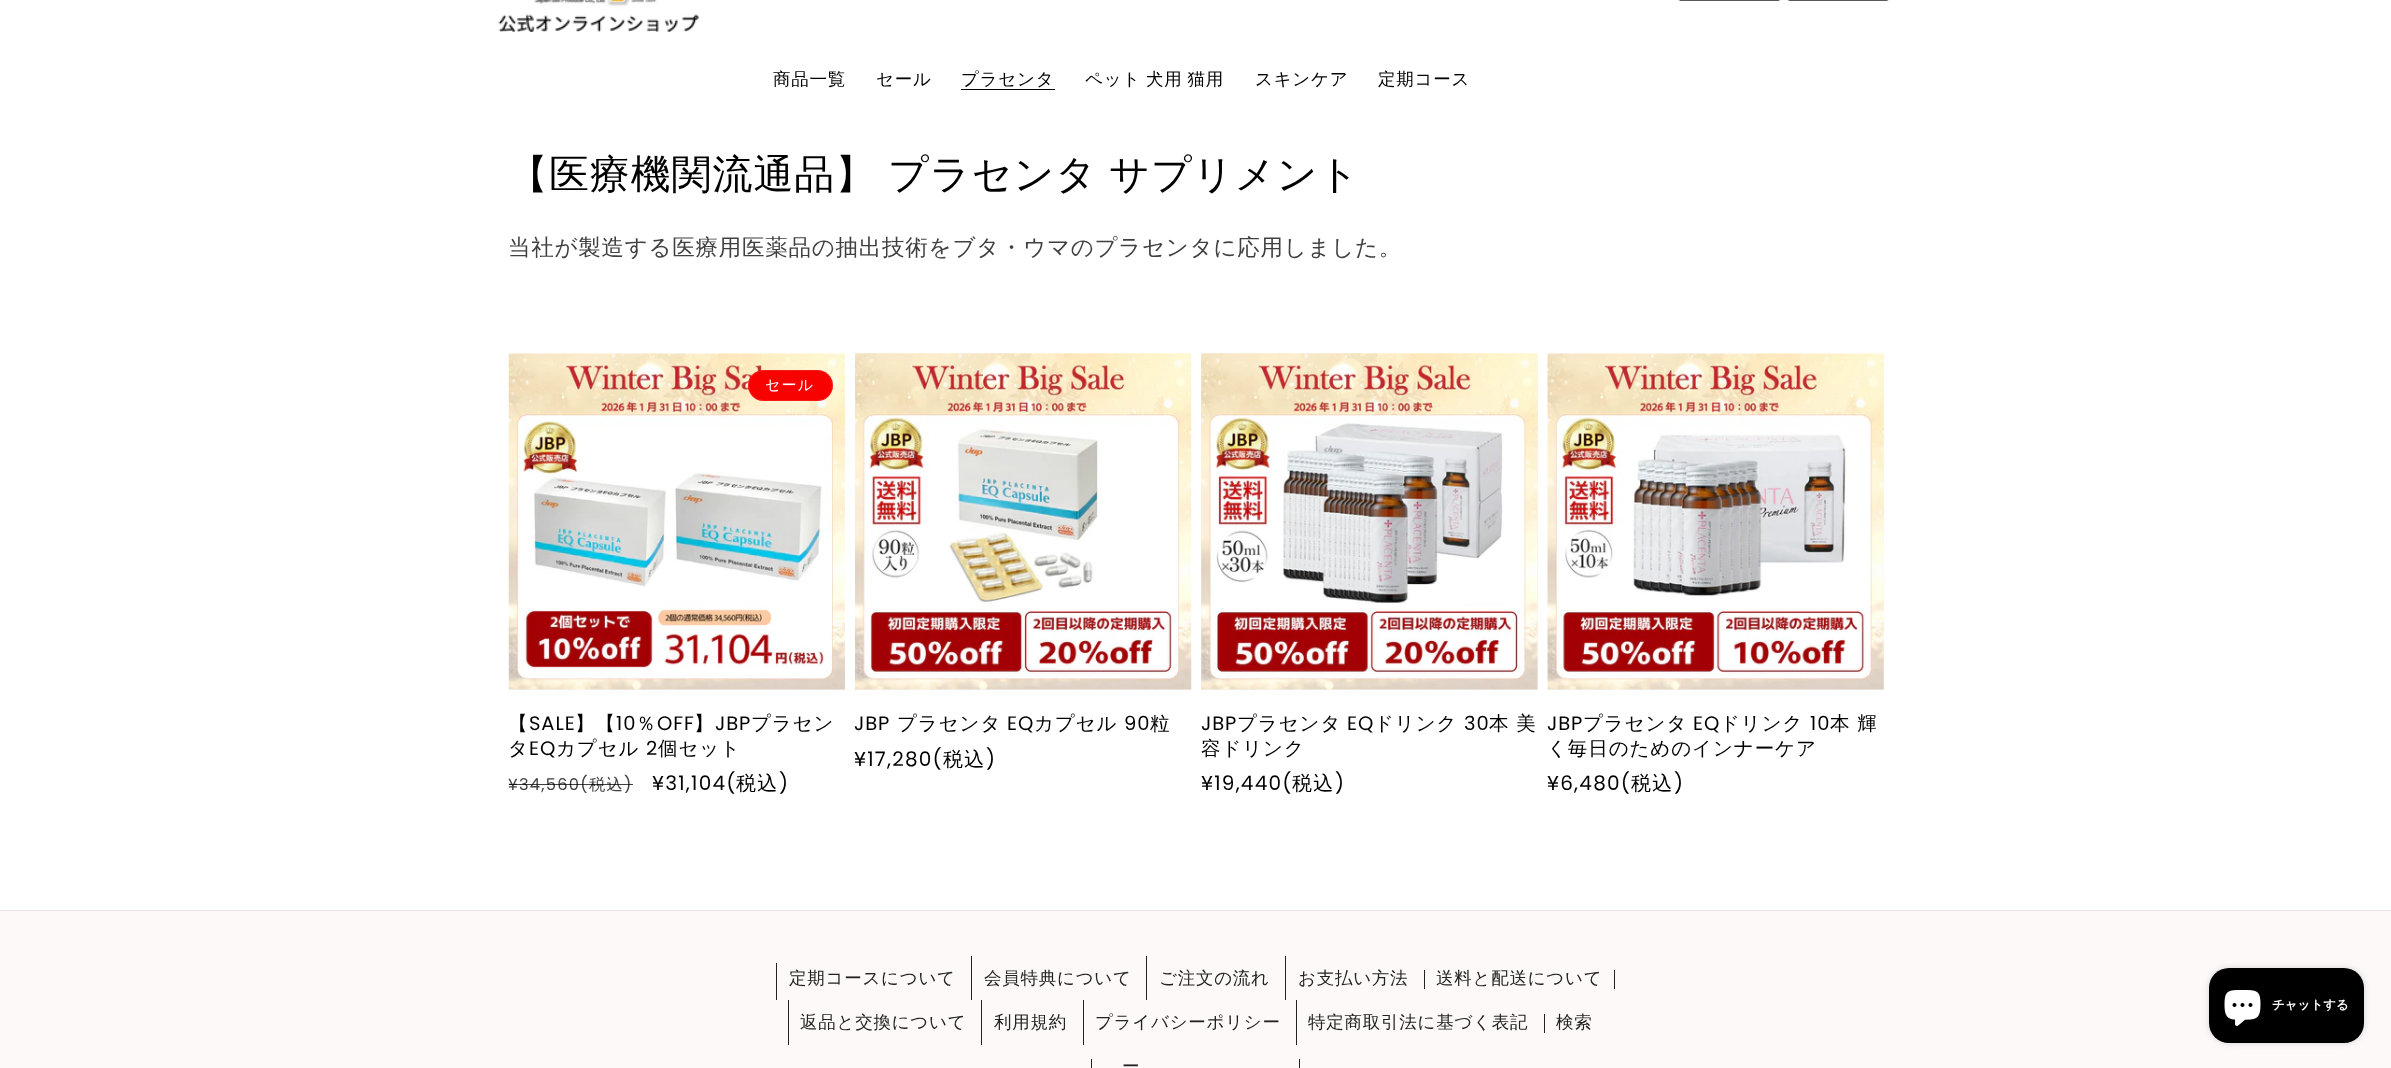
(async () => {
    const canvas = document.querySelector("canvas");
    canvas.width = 2391;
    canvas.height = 1068;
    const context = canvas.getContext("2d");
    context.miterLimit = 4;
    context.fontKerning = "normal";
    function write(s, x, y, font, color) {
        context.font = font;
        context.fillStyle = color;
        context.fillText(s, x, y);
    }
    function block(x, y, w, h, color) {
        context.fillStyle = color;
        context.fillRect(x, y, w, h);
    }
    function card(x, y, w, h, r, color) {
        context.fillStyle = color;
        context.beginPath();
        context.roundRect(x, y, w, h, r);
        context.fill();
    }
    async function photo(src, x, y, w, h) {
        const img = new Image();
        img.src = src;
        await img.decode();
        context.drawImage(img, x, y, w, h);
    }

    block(0, 0, 2391, 1068, "rgb(255, 255, 255)");
    await photo("media/1.png", 498, 0, 201, 32);
    await photo("media/2.png", 1678, 0, 102, 1);
    await photo("media/3.png", 1787, 0, 102, 1);
    context.letterSpacing = "0.75px";
    write("商品一覧", 773, 85, "500 17.5px WenQuanYi Zen Hei", "rgb(0, 0, 0)");
    write("セール", 876, 85, "500 17.5px WenQuanYi Zen Hei", "rgb(0, 0, 0)");
    write("プラセンタ", 961, 85, "500 17.5px WenQuanYi Zen Hei", "rgb(0, 0, 0)");
    block(961, 89, 94, 1, "rgb(0, 0, 0)");
    context.wordSpacing = "-1px";
    write("ペット 犬用 猫用", 1085, 85, "500 17.5px WenQuanYi Zen Hei", "rgb(0, 0, 0)");
    context.wordSpacing = "0px";
    write("スキンケア", 1255, 85, "500 17.5px WenQuanYi Zen Hei", "rgb(0, 0, 0)");
    write("定期コース", 1378, 85, "500 17.5px WenQuanYi Zen Hei", "rgb(0, 0, 0)");
    context.letterSpacing = "0.9px";
    context.wordSpacing = "-1px";
    write("【医療機関流通品】 プラセンタ サプリメント", 508, 188, "500 40px WenQuanYi Zen Hei", "rgb(0, 0, 0)");
    context.letterSpacing = "0.75px";
    context.wordSpacing = "0px";
    write("当社が製造する医療用医薬品の抽出技術をブタ・ウマのプラセンタに応用しました。", 508, 255, "500 22.5px WenQuanYi Zen Hei", "rgb(64, 64, 64)");
    block(509, 689, 336, 1, "rgb(243, 243, 243)");
    await photo("media/4.png", 508, 353, 337, 337);
    card(748, 370, 85, 31, 15.5, "rgb(248, 1, 1)");
    context.beginPath();
    context.roundRect(748.5, 370.5, 84, 30, 15);
    context.strokeStyle = "rgba(255, 255, 255, 0.1)";
    context.stroke();
    context.letterSpacing = "1.25px";
    write("セール", 765, 390, "500 15px WenQuanYi Zen Hei", "rgb(255, 255, 255)");
    context.letterSpacing = "0.9px";
    write("【", 508, 730, "500 19.5px WenQuanYi Zen Hei", "rgb(0, 0, 0)");
    write("SALE", 529, 730, "19.5px Poppins", "rgb(0, 0, 0)");
    write("】【", 575, 730, "500 19.5px WenQuanYi Zen Hei", "rgb(0, 0, 0)");
    write("10", 616, 730, "19.5px Poppins", "rgb(0, 0, 0)");
    write("％", 636, 730, "500 19.5px WenQuanYi Zen Hei", "rgb(0, 0, 0)");
    write("OFF", 657, 730, "19.5px Poppins", "rgb(0, 0, 0)");
    write("】", 694, 730, "500 19.5px WenQuanYi Zen Hei", "rgb(0, 0, 0)");
    write("JBP", 715, 730, "19.5px Poppins", "rgb(0, 0, 0)");
    write("プラセン", 751, 730, "500 19.5px WenQuanYi Zen Hei", "rgb(0, 0, 0)");
    write("タ", 508, 755, "500 19.5px WenQuanYi Zen Hei", "rgb(0, 0, 0)");
    write("EQ", 529, 755, "19.5px Poppins", "rgb(0, 0, 0)");
    write("カプセル", 556, 755, "500 19.5px WenQuanYi Zen Hei", "rgb(0, 0, 0)");
    write("2", 646, 755, "19.5px Poppins", "rgb(0, 0, 0)");
    write("個セット", 658, 755, "500 19.5px WenQuanYi Zen Hei", "rgb(0, 0, 0)");
    context.letterSpacing = "1.25px";
    write("¥34,560(", 508, 790, "16.25px Poppins", "rgb(64, 64, 64)");
    write("税込", 589, 790, "500 16.25px WenQuanYi Zen Hei", "rgb(64, 64, 64)");
    write(")", 624, 790, "16.25px Poppins", "rgb(64, 64, 64)");
    block(509, 784, 124, 1, "rgba(0, 0, 0, 0.75)");
    write("¥31,104(", 652, 790, "20px Poppins", "rgb(0, 0, 0)");
    write("税込", 736, 790, "500 20px WenQuanYi Zen Hei", "rgb(0, 0, 0)");
    write(")", 779, 790, "20px Poppins", "rgb(0, 0, 0)");
    block(855, 689, 336, 1, "rgb(243, 243, 243)");
    await photo("media/5.png", 855, 353, 337, 337);
    context.letterSpacing = "0.9px";
    write("JBP", 854, 730, "19.5px Poppins", "rgb(0, 0, 0)");
    write("プラセンタ", 897, 730, "500 19.5px WenQuanYi Zen Hei", "rgb(0, 0, 0)");
    write("EQ", 1007, 730, "19.5px Poppins", "rgb(0, 0, 0)");
    write("カプセル", 1034, 730, "500 19.5px WenQuanYi Zen Hei", "rgb(0, 0, 0)");
    write("90", 1124, 730, "19.5px Poppins", "rgb(0, 0, 0)");
    write("粒", 1150, 730, "500 19.5px WenQuanYi Zen Hei", "rgb(0, 0, 0)");
    context.letterSpacing = "1.25px";
    write("¥17,280(", 854, 766, "20px Poppins", "rgb(0, 0, 0)");
    write("税込", 943, 766, "500 20px WenQuanYi Zen Hei", "rgb(0, 0, 0)");
    write(")", 986, 766, "20px Poppins", "rgb(0, 0, 0)");
    block(1201, 354, 337, 336, "rgb(243, 243, 243)");
    await photo("media/6.png", 1201, 353, 337, 337);
    context.letterSpacing = "0.9px";
    write("JBP", 1201, 730, "19.5px Poppins", "rgb(0, 0, 0)");
    write("プラセンタ", 1237, 730, "500 19.5px WenQuanYi Zen Hei", "rgb(0, 0, 0)");
    write("EQ", 1347, 730, "19.5px Poppins", "rgb(0, 0, 0)");
    write("ドリンク", 1374, 730, "500 19.5px WenQuanYi Zen Hei", "rgb(0, 0, 0)");
    write("30", 1464, 730, "19.5px Poppins", "rgb(0, 0, 0)");
    write("本 美", 1489, 730, "500 19.5px WenQuanYi Zen Hei", "rgb(0, 0, 0)");
    write("容ドリンク", 1201, 755, "500 19.5px WenQuanYi Zen Hei", "rgb(0, 0, 0)");
    context.letterSpacing = "1.25px";
    write("¥19,440(", 1201, 790, "20px Poppins", "rgb(0, 0, 0)");
    write("税込", 1292, 790, "500 20px WenQuanYi Zen Hei", "rgb(0, 0, 0)");
    write(")", 1335, 790, "20px Poppins", "rgb(0, 0, 0)");
    block(1548, 354, 336, 336, "rgb(243, 243, 243)");
    await photo("media/7.png", 1547, 353, 337, 337);
    context.letterSpacing = "0.9px";
    write("JBP", 1547, 730, "19.5px Poppins", "rgb(0, 0, 0)");
    write("プラセンタ", 1583, 730, "500 19.5px WenQuanYi Zen Hei", "rgb(0, 0, 0)");
    write("EQ", 1693, 730, "19.5px Poppins", "rgb(0, 0, 0)");
    write("ドリンク", 1720, 730, "500 19.5px WenQuanYi Zen Hei", "rgb(0, 0, 0)");
    write("10", 1810, 730, "19.5px Poppins", "rgb(0, 0, 0)");
    write("本 輝", 1830, 730, "500 19.5px WenQuanYi Zen Hei", "rgb(0, 0, 0)");
    write("く毎日のためのインナーケア", 1547, 755, "500 19.5px WenQuanYi Zen Hei", "rgb(0, 0, 0)");
    context.letterSpacing = "1.25px";
    write("¥6,480(", 1547, 790, "20px Poppins", "rgb(0, 0, 0)");
    write("税込", 1631, 790, "500 20px WenQuanYi Zen Hei", "rgb(0, 0, 0)");
    write(")", 1674, 790, "20px Poppins", "rgb(0, 0, 0)");
    block(0, 911, 2391, 157, "rgb(254, 249, 249)");
    block(0, 910, 2391, 1, "rgb(234, 229, 229)");
    block(776, 963, 1, 37, "rgb(34, 34, 34)");
    context.letterSpacing = "0.75px";
    write("定期コースについて", 789, 984, "500 17.5px WenQuanYi Zen Hei", "rgb(34, 34, 34)");
    block(971, 956, 1, 44, "rgb(34, 34, 34)");
    write("会員特典について", 984, 984, "500 17.5px WenQuanYi Zen Hei", "rgb(34, 34, 34)");
    block(1146, 956, 1, 44, "rgb(34, 34, 34)");
    write("ご注文の流れ", 1159, 984, "500 17.5px WenQuanYi Zen Hei", "rgb(34, 34, 34)");
    block(1285, 956, 1, 44, "rgb(34, 34, 34)");
    write("お支払い方法", 1298, 984, "500 17.5px WenQuanYi Zen Hei", "rgb(34, 34, 34)");
    block(1614, 970, 1, 19, "rgb(34, 34, 34)");
    block(1424, 970, 1, 19, "rgb(34, 34, 34)");
    write("送料と配送について", 1436, 984, "500 17.5px WenQuanYi Zen Hei", "rgb(34, 34, 34)");
    block(788, 1000, 1, 45, "rgb(34, 34, 34)");
    write("返品と交換について", 800, 1028, "500 17.5px WenQuanYi Zen Hei", "rgb(34, 34, 34)");
    block(981, 1000, 1, 45, "rgb(34, 34, 34)");
    write("利用規約", 994, 1028, "500 17.5px WenQuanYi Zen Hei", "rgb(34, 34, 34)");
    block(1083, 1000, 1, 45, "rgb(34, 34, 34)");
    write("プライバシーポリシー", 1095, 1028, "500 17.5px WenQuanYi Zen Hei", "rgb(34, 34, 34)");
    block(1296, 1000, 1, 45, "rgb(34, 34, 34)");
    write("特定商取引法に基づく表記", 1308, 1028, "500 17.5px WenQuanYi Zen Hei", "rgb(34, 34, 34)");
    block(1544, 1014, 1, 19, "rgb(34, 34, 34)");
    write("検索", 1556, 1028, "500 17.5px WenQuanYi Zen Hei", "rgb(34, 34, 34)");
    block(1299, 1059, 1, 9, "rgb(34, 34, 34)");
    block(1091, 1059, 1, 9, "rgb(34, 34, 34)");
    write("ー", 1122, 1072, "500 17.5px WenQuanYi Zen Hei", "rgb(34, 34, 34)");
    context.fillStyle = "rgba(0, 0, 0, 0.15)";
    context.filter = "blur(3px)";
    context.beginPath();
    context.roundRect(2209, 968, 155, 75, 20);
    context.fill();
    context.filter = "none";
    card(2209, 968, 155, 75, 20, "rgb(0, 0, 0)");
    await photo("media/8.png", 2224, 990, 37, 36);
    context.letterSpacing = "0px";
    write("チャットする", 2272, 1009, "bold 12.5px WenQuanYi Zen Hei", "rgb(255, 255, 255)");
})();
